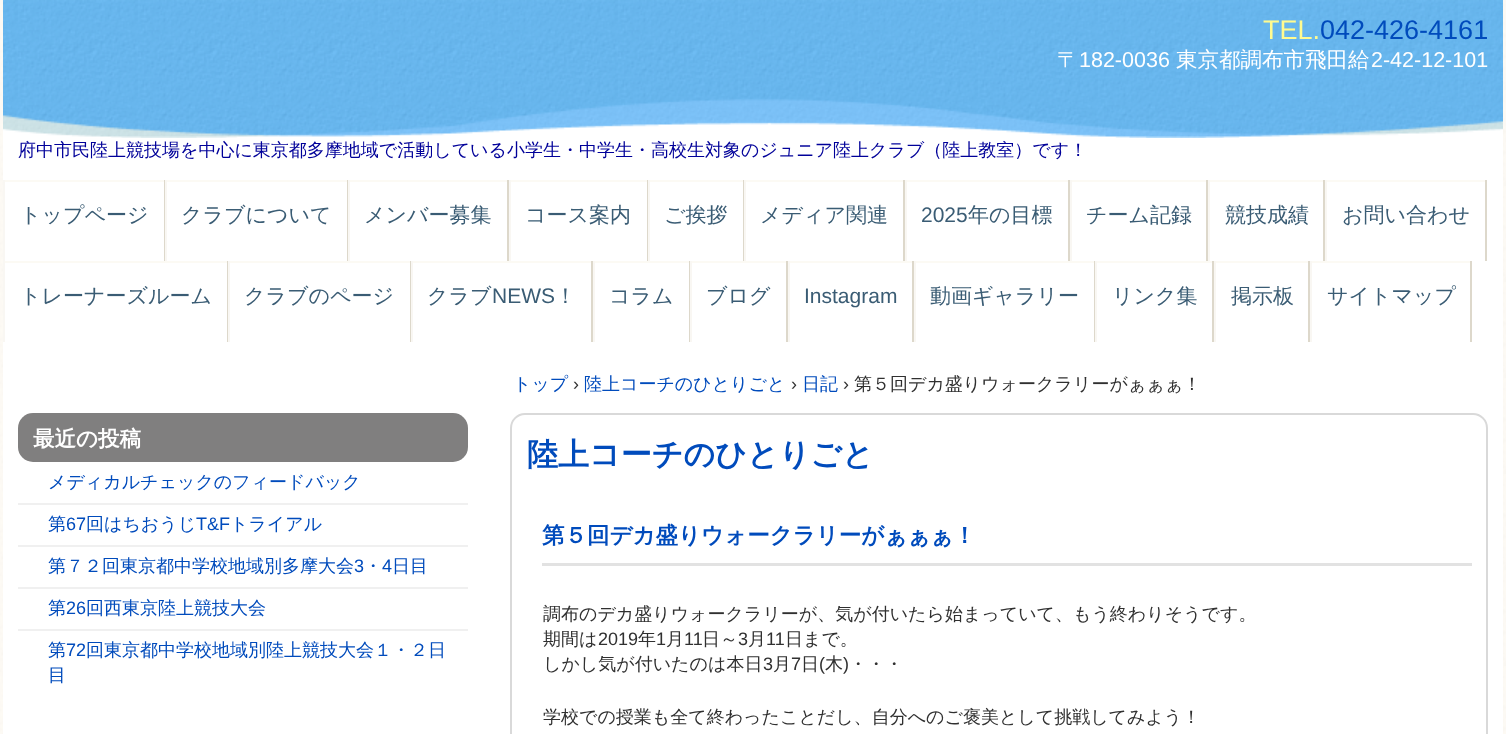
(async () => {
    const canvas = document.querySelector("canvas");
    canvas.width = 1506;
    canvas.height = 734;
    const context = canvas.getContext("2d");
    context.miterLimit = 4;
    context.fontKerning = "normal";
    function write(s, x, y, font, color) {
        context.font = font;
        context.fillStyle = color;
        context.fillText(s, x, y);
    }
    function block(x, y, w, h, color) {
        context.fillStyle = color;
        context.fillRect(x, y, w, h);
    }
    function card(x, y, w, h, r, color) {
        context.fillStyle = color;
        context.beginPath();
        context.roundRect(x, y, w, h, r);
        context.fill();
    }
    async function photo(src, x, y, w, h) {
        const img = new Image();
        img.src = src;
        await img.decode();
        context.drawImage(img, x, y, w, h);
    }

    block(0, 0, 1506, 734, "rgb(255, 255, 255)");
    await photo("media/1.png", 0, 0, 1506, 734);
    block(3, 138, 1500, 596, "rgb(255, 255, 255)");
    await photo("media/2.png", 3, 0, 1500, 138);
    write("TEL.", 1263, 39, "27px Liberation Sans", "rgb(255, 251, 144)");
    write("042-426-4161", 1320, 39, "27px Liberation Sans", "rgb(0, 75, 188)");
    write("〒", 1057, 67, "500 21.5px WenQuanYi Zen Hei", "rgb(255, 255, 255)");
    write("182-0036", 1079, 67, "21.5px Liberation Sans", "rgb(255, 255, 255)");
    write("東京都調布市飛田給", 1176, 67, "500 21.5px WenQuanYi Zen Hei", "rgb(255, 255, 255)");
    write("2-42-12-101", 1371, 67, "21.5px Liberation Sans", "rgb(255, 255, 255)");
    write("府中市民陸上競技場を中心に東京都多摩地域で活動している小学生・中学生・高校生対象のジュニア陸上クラブ（陸上教室）です！", 18, 156, "500 18px WenQuanYi Zen Hei", "rgb(0, 0, 153)");
    block(3, 180, 1484, 2, "rgb(252, 250, 244)");
    block(164, 180, 1, 81, "rgb(221, 216, 203)");
    block(3, 180, 2, 81, "rgb(249, 247, 243)");
    write("トップページ", 20, 222, "500 21px WenQuanYi Zen Hei", "rgb(58, 92, 116)");
    block(347, 180, 1, 81, "rgb(221, 216, 203)");
    block(165, 180, 2, 81, "rgb(249, 247, 243)");
    write("クラブについて", 181, 222, "500 21px WenQuanYi Zen Hei", "rgb(58, 92, 116)");
    block(507, 180, 2, 81, "rgb(221, 216, 203)");
    block(348, 180, 2, 81, "rgb(249, 247, 243)");
    write("メンバー募集", 364, 222, "500 21px WenQuanYi Zen Hei", "rgb(58, 92, 116)");
    block(647, 180, 1, 81, "rgb(221, 216, 203)");
    block(509, 180, 2, 81, "rgb(249, 247, 243)");
    write("コース案内", 525, 222, "500 21px WenQuanYi Zen Hei", "rgb(58, 92, 116)");
    block(743, 180, 1, 81, "rgb(221, 216, 203)");
    block(648, 180, 2, 81, "rgb(249, 247, 243)");
    write("ご挨拶", 664, 222, "500 21px WenQuanYi Zen Hei", "rgb(58, 92, 116)");
    block(903, 180, 2, 81, "rgb(221, 216, 203)");
    block(744, 180, 2, 81, "rgb(249, 247, 243)");
    write("メディア関連", 760, 222, "500 21px WenQuanYi Zen Hei", "rgb(58, 92, 116)");
    block(1068, 180, 2, 81, "rgb(221, 216, 203)");
    block(905, 180, 2, 81, "rgb(249, 247, 243)");
    write("2025", 921, 222, "21px Liberation Sans", "rgb(58, 92, 116)");
    write("年の目標", 968, 222, "500 21px WenQuanYi Zen Hei", "rgb(58, 92, 116)");
    block(1206, 180, 2, 81, "rgb(221, 216, 203)");
    block(1070, 180, 2, 81, "rgb(249, 247, 243)");
    write("チーム記録", 1086, 222, "500 21px WenQuanYi Zen Hei", "rgb(58, 92, 116)");
    block(1323, 180, 2, 81, "rgb(221, 216, 203)");
    block(1208, 180, 2, 81, "rgb(249, 247, 243)");
    write("競技成績", 1225, 222, "500 21px WenQuanYi Zen Hei", "rgb(58, 92, 116)");
    block(1485, 180, 2, 81, "rgb(221, 216, 203)");
    block(1325, 180, 2, 81, "rgb(249, 247, 243)");
    write("お問い合わせ", 1342, 222, "500 21px WenQuanYi Zen Hei", "rgb(58, 92, 116)");
    block(3, 261, 1469, 2, "rgb(252, 250, 244)");
    block(227, 261, 1, 81, "rgb(221, 216, 203)");
    block(3, 261, 2, 81, "rgb(249, 247, 243)");
    write("トレーナーズルーム", 20, 303, "500 21px WenQuanYi Zen Hei", "rgb(58, 92, 116)");
    block(410, 261, 1, 81, "rgb(221, 216, 203)");
    block(228, 261, 2, 81, "rgb(249, 247, 243)");
    write("クラブのページ", 244, 303, "500 21px WenQuanYi Zen Hei", "rgb(58, 92, 116)");
    block(591, 261, 2, 81, "rgb(221, 216, 203)");
    block(411, 261, 2, 81, "rgb(249, 247, 243)");
    write("クラブ", 427, 303, "500 21px WenQuanYi Zen Hei", "rgb(58, 92, 116)");
    write("NEWS", 492, 303, "21px Liberation Sans", "rgb(58, 92, 116)");
    write("！", 555, 303, "500 21px WenQuanYi Zen Hei", "rgb(58, 92, 116)");
    block(689, 261, 1, 81, "rgb(221, 216, 203)");
    block(593, 261, 2, 81, "rgb(249, 247, 243)");
    write("コラム", 609, 303, "500 21px WenQuanYi Zen Hei", "rgb(58, 92, 116)");
    block(786, 261, 2, 81, "rgb(221, 216, 203)");
    block(690, 261, 2, 81, "rgb(249, 247, 243)");
    write("ブログ", 706, 303, "500 21px WenQuanYi Zen Hei", "rgb(58, 92, 116)");
    block(912, 261, 2, 81, "rgb(221, 216, 203)");
    block(788, 261, 2, 81, "rgb(249, 247, 243)");
    write("Instagram", 804, 303, "21px Liberation Sans", "rgb(58, 92, 116)");
    block(1094, 261, 1, 81, "rgb(221, 216, 203)");
    block(914, 261, 2, 81, "rgb(249, 247, 243)");
    write("動画ギャラリー", 930, 303, "500 21px WenQuanYi Zen Hei", "rgb(58, 92, 116)");
    block(1212, 261, 2, 81, "rgb(221, 216, 203)");
    block(1095, 261, 2, 81, "rgb(249, 247, 243)");
    write("リンク集", 1112, 303, "500 21px WenQuanYi Zen Hei", "rgb(58, 92, 116)");
    block(1308, 261, 2, 81, "rgb(221, 216, 203)");
    block(1214, 261, 2, 81, "rgb(249, 247, 243)");
    write("掲示板", 1231, 303, "500 21px WenQuanYi Zen Hei", "rgb(58, 92, 116)");
    block(1470, 261, 2, 81, "rgb(221, 216, 203)");
    block(1310, 261, 2, 81, "rgb(249, 247, 243)");
    write("サイトマップ", 1327, 303, "500 21px WenQuanYi Zen Hei", "rgb(58, 92, 116)");
    write("トップ", 513, 390, "500 18px WenQuanYi Zen Hei", "rgb(0, 75, 188)");
    write("›", 573, 390, "18px Liberation Sans", "rgb(48, 48, 48)");
    write("陸上コーチのひとりごと", 584, 390, "500 18px WenQuanYi Zen Hei", "rgb(0, 75, 188)");
    write("›", 791, 390, "18px Liberation Sans", "rgb(48, 48, 48)");
    write("日記", 802, 390, "500 18px WenQuanYi Zen Hei", "rgb(0, 75, 188)");
    write("›", 843, 390, "18px Liberation Sans", "rgb(48, 48, 48)");
    write("第５回デカ盛りウォークラリーがぁぁぁ！", 854, 390, "500 18px WenQuanYi Zen Hei", "rgb(48, 48, 48)");
    card(18, 413, 450, 49, 15, "rgb(128, 127, 127)");
    write("最近の投稿", 33, 446, "bold 21.5px WenQuanYi Zen Hei", "rgb(255, 255, 255)");
    block(18, 503, 450, 2, "rgb(240, 240, 240)");
    write("メディカルチェックのフィードバック", 48, 488, "500 18px WenQuanYi Zen Hei", "rgb(0, 75, 188)");
    block(18, 545, 450, 2, "rgb(240, 240, 240)");
    write("第", 48, 530, "500 18px WenQuanYi Zen Hei", "rgb(0, 75, 188)");
    write("67", 66, 530, "18px Liberation Sans", "rgb(0, 75, 188)");
    write("回はちおうじ", 86, 530, "500 18px WenQuanYi Zen Hei", "rgb(0, 75, 188)");
    write("T&F", 196, 530, "18px Liberation Sans", "rgb(0, 75, 188)");
    write("トライアル", 230, 530, "500 18px WenQuanYi Zen Hei", "rgb(0, 75, 188)");
    block(18, 587, 450, 2, "rgb(240, 240, 240)");
    write("第７２回東京都中学校地域別多摩大会", 48, 572, "500 18px WenQuanYi Zen Hei", "rgb(0, 75, 188)");
    write("3", 354, 572, "18px Liberation Sans", "rgb(0, 75, 188)");
    write("・", 364, 572, "500 18px WenQuanYi Zen Hei", "rgb(0, 75, 188)");
    write("4", 382, 572, "18px Liberation Sans", "rgb(0, 75, 188)");
    write("日目", 392, 572, "500 18px WenQuanYi Zen Hei", "rgb(0, 75, 188)");
    block(18, 629, 450, 2, "rgb(240, 240, 240)");
    write("第", 48, 614, "500 18px WenQuanYi Zen Hei", "rgb(0, 75, 188)");
    write("26", 66, 614, "18px Liberation Sans", "rgb(0, 75, 188)");
    write("回西東京陸上競技大会", 86, 614, "500 18px WenQuanYi Zen Hei", "rgb(0, 75, 188)");
    write("第", 48, 656, "500 18px WenQuanYi Zen Hei", "rgb(0, 75, 188)");
    write("72", 66, 656, "18px Liberation Sans", "rgb(0, 75, 188)");
    write("回東京都中学校地域別陸上競技大会１・２日", 86, 656, "500 18px WenQuanYi Zen Hei", "rgb(0, 75, 188)");
    write("目", 48, 681, "500 18px WenQuanYi Zen Hei", "rgb(0, 75, 188)");
    context.beginPath();
    context.roundRect(511, 414, 976, 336, 14);
    context.strokeStyle = "rgb(217, 217, 217)";
    context.lineWidth = 2;
    context.stroke();
    write("陸上コーチのひとりごと", 527, 465, "bold 31px WenQuanYi Zen Hei", "rgb(0, 75, 188)");
    block(542, 563, 930, 3, "rgb(226, 226, 226)");
    write("第５回デカ盛りウォークラリーがぁぁぁ！", 542, 543, "bold 22.5px WenQuanYi Zen Hei", "rgb(0, 75, 188)");
    write("調布のデカ盛りウォークラリーが、気が付いたら始まっていて、もう終わりそうです。", 543, 620, "500 18px WenQuanYi Zen Hei", "rgb(48, 48, 48)");
    write("期間は", 543, 645, "500 18px WenQuanYi Zen Hei", "rgb(48, 48, 48)");
    write("2019", 598, 645, "18px Liberation Sans", "rgb(48, 48, 48)");
    write("年", 638, 645, "500 18px WenQuanYi Zen Hei", "rgb(48, 48, 48)");
    write("1", 656, 645, "18px Liberation Sans", "rgb(48, 48, 48)");
    write("月", 666, 645, "500 18px WenQuanYi Zen Hei", "rgb(48, 48, 48)");
    write("11", 684, 645, "18px Liberation Sans", "rgb(48, 48, 48)");
    write("日～", 702, 645, "500 18px WenQuanYi Zen Hei", "rgb(48, 48, 48)");
    write("3", 738, 645, "18px Liberation Sans", "rgb(48, 48, 48)");
    write("月", 748, 645, "500 18px WenQuanYi Zen Hei", "rgb(48, 48, 48)");
    write("11", 766, 645, "18px Liberation Sans", "rgb(48, 48, 48)");
    write("日まで。", 785, 645, "500 18px WenQuanYi Zen Hei", "rgb(48, 48, 48)");
    write("しかし気が付いたのは本日", 543, 670, "500 18px WenQuanYi Zen Hei", "rgb(48, 48, 48)");
    write("3", 763, 670, "18px Liberation Sans", "rgb(48, 48, 48)");
    write("月", 773, 670, "500 18px WenQuanYi Zen Hei", "rgb(48, 48, 48)");
    write("7", 791, 670, "18px Liberation Sans", "rgb(48, 48, 48)");
    write("日", 801, 670, "500 18px WenQuanYi Zen Hei", "rgb(48, 48, 48)");
    write("(", 819, 670, "18px Liberation Sans", "rgb(48, 48, 48)");
    write("木", 825, 670, "500 18px WenQuanYi Zen Hei", "rgb(48, 48, 48)");
    write(")", 843, 670, "18px Liberation Sans", "rgb(48, 48, 48)");
    write("・・・", 849, 670, "500 18px WenQuanYi Zen Hei", "rgb(48, 48, 48)");
    write("学校での授業も全て終わったことだし、自分へのご褒美として挑戦してみよう！", 543, 723, "500 18px WenQuanYi Zen Hei", "rgb(48, 48, 48)");
})();
